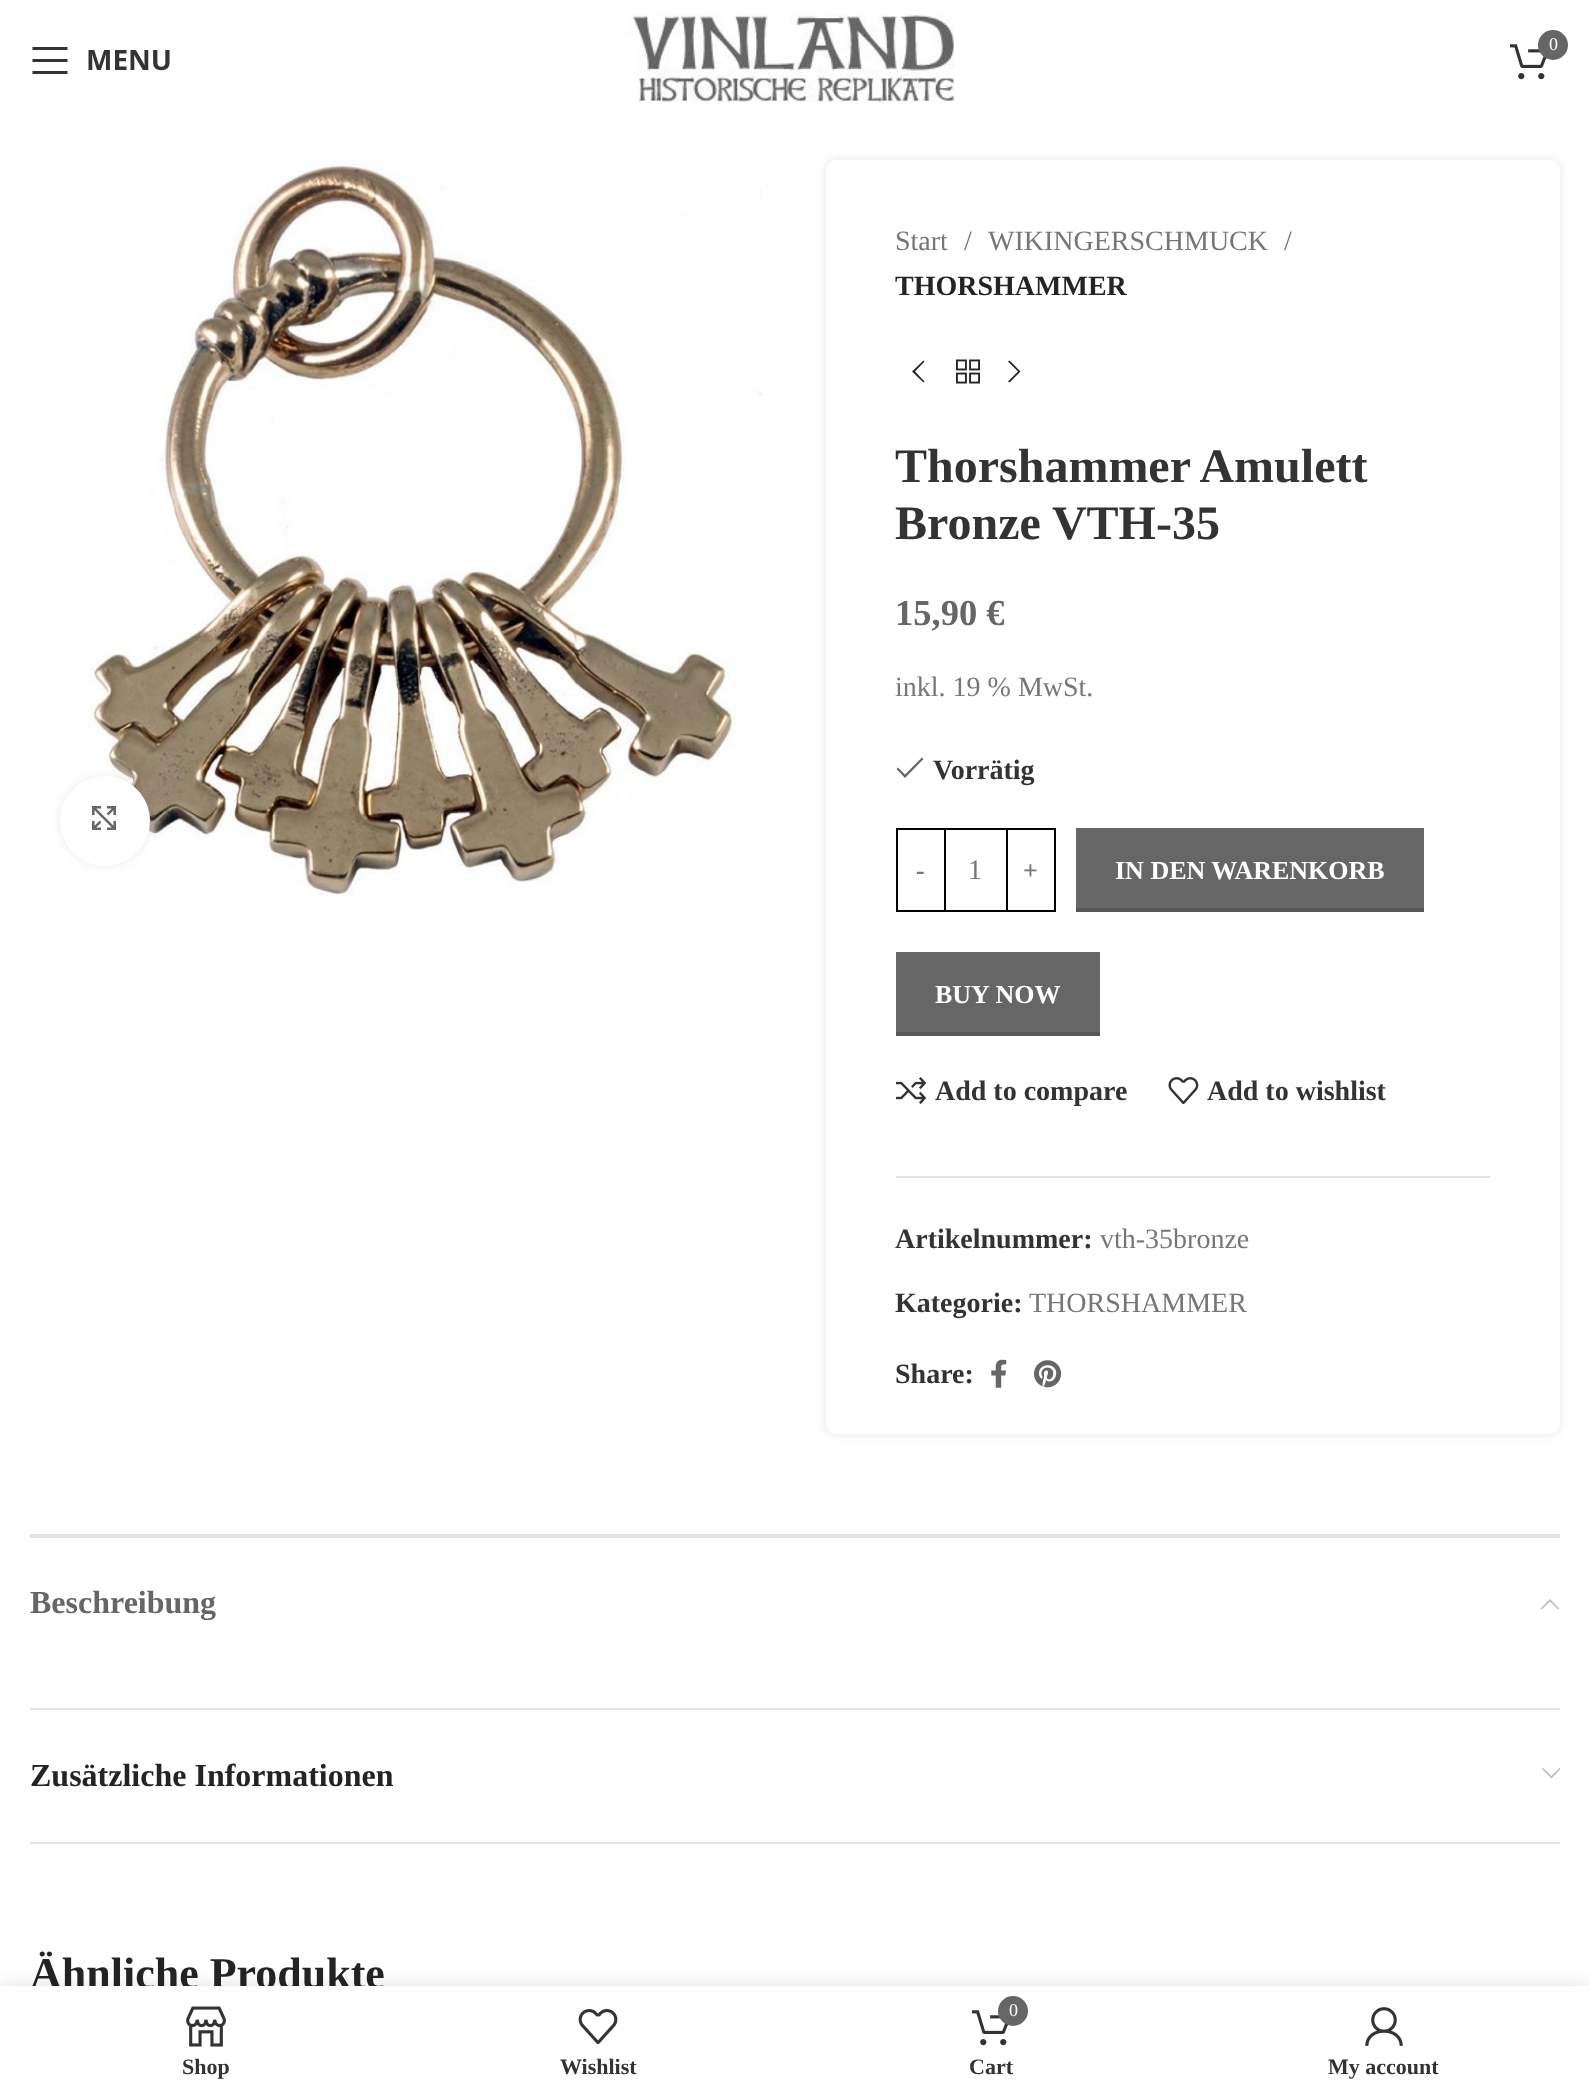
(async () => {
    const canvas = document.querySelector("canvas");
    canvas.width = 1590;
    canvas.height = 2095;
    const context = canvas.getContext("2d");
    context.miterLimit = 4;
    context.fontKerning = "normal";
    function write(s, x, y, font, color) {
        context.font = font;
        context.fillStyle = color;
        context.fillText(s, x, y);
    }
    function block(x, y, w, h, color) {
        context.fillStyle = color;
        context.fillRect(x, y, w, h);
    }
    function card(x, y, w, h, r, color) {
        context.fillStyle = color;
        context.beginPath();
        context.roundRect(x, y, w, h, r);
        context.fill();
    }
    async function photo(src, x, y, w, h) {
        const img = new Image();
        img.src = src;
        await img.decode();
        context.drawImage(img, x, y, w, h);
    }

    block(0, 0, 1590, 2095, "rgb(255, 255, 255)");
    await photo("media/1.png", 627, 14, 327, 88);
    await photo("media/2.png", 1510, 44, 37, 36);
    context.fillStyle = "rgb(102, 102, 102)";
    context.beginPath();
    context.arc(1553, 45, 15, 0, Math.PI * 2);
    context.fill();
    write("0", 1549, 50, "18px Liberation Serif", "rgb(255, 255, 255)");
    context.fillStyle = "rgb(51, 51, 51)";
    context.beginPath();
    context.moveTo(32.5, 50);
    context.lineTo(67.5, 50);
    context.lineTo(67.5, 47);
    context.lineTo(32.5, 47);
    context.closePath();
    context.moveTo(32.5, 62);
    context.lineTo(67.5, 62);
    context.lineTo(67.5, 59);
    context.lineTo(32.5, 59);
    context.closePath();
    context.moveTo(32.5, 74);
    context.lineTo(67.5, 74);
    context.lineTo(67.5, 71);
    context.lineTo(32.5, 71);
    context.closePath();
    context.fill();
    write("MENU", 86, 70, "bold 28px Open Sans", "rgb(51, 51, 51)");
    await photo("media/3.png", 88, 160, 674, 736);
    context.fillStyle = "rgba(0, 0, 0, 0.08)";
    context.filter = "blur(5px)";
    context.beginPath();
    context.roundRect(60, 776, 90, 90, 45);
    context.fill();
    context.filter = "none";
    context.fillStyle = "rgb(255, 255, 255)";
    context.beginPath();
    context.arc(105, 821, 45, 0, Math.PI * 2);
    context.fill();
    await photo("media/4.png", 92, 806, 24, 24);
    context.fillStyle = "rgba(0, 0, 0, 0.1)";
    context.filter = "blur(5px)";
    context.beginPath();
    context.roundRect(826, 160, 734, 1274, 10);
    context.fill();
    context.filter = "none";
    card(826, 160, 734, 1274, 10, "rgb(255, 255, 255)");
    write("Start", 895, 250, "28px Liberation Serif", "rgb(118, 118, 118)");
    write("/", 964, 250, "28px Liberation Serif", "rgb(118, 118, 118)");
    write("WIKINGERSCHMUCK", 988, 250, "28px Liberation Serif", "rgb(118, 118, 118)");
    write("/", 1284, 250, "28px Liberation Serif", "rgb(118, 118, 118)");
    write("THORSHAMMER", 895, 295, "bold 28px Liberation Serif", "rgb(36, 36, 36)");
    context.beginPath();
    context.moveTo(924.5, 361.5);
    context.lineTo(923.5, 360.5);
    context.lineTo(912, 371.5);
    context.lineTo(923.5, 382.5);
    context.lineTo(924.5, 381.5);
    context.lineTo(915, 371.5);
    context.closePath();
    context.fill();
    await photo("media/5.png", 956, 359, 24, 25);
    context.beginPath();
    context.moveTo(1008, 361.5);
    context.lineTo(1018, 371.5);
    context.lineTo(1008, 381.5);
    context.lineTo(1009.5, 382.5);
    context.lineTo(1020.5, 371.5);
    context.lineTo(1009.5, 360.5);
    context.closePath();
    context.fill();
    write("Thorshammer Amulett", 895, 482, "bold 48px Liberation Serif", "rgb(51, 51, 51)");
    write("Bronze VTH-35", 895, 539, "bold 48px Liberation Serif", "rgb(51, 51, 51)");
    write("15,90 €", 895, 625, "bold 36.5px Liberation Serif", "rgb(102, 102, 102)");
    write("inkl. 19 % MwSt.", 895, 696, "28px Liberation Serif", "rgb(118, 118, 118)");
    context.fillStyle = "rgb(102, 102, 102)";
    context.beginPath();
    context.moveTo(923.5, 759);
    context.lineTo(922, 757.5);
    context.lineTo(905, 774.5);
    context.lineTo(898, 767.5);
    context.lineTo(896.5, 769);
    context.lineTo(905, 778);
    context.closePath();
    context.fill();
    write("Vorrätig", 933, 779, "bold 28px Liberation Serif", "rgb(51, 51, 51)");
    context.strokeStyle = "rgb(0, 0, 0)";
    context.lineWidth = 2;
    context.strokeRect(897, 829, 48, 82);
    write("-", 916, 879, "bold 26px Liberation Serif", "rgb(118, 118, 118)");
    block(946, 828, 60, 2, "rgb(0, 0, 0)");
    block(946, 910, 60, 2, "rgb(0, 0, 0)");
    write("1", 968, 879, "28px Liberation Serif", "rgb(118, 118, 118)");
    context.strokeRect(1007, 829, 48, 82);
    write("+", 1023, 879, "bold 26px Liberation Serif", "rgb(118, 118, 118)");
    block(1076, 828, 348, 80, "rgb(102, 102, 102)");
    block(1076, 908, 348, 4, "rgb(87, 87, 87)");
    write("IN DEN WARENKORB", 1115, 879, "bold 26px Liberation Serif", "rgb(255, 255, 255)");
    block(896, 952, 204, 80, "rgb(102, 102, 102)");
    block(896, 1032, 204, 4, "rgb(87, 87, 87)");
    write("BUY NOW", 935, 1003, "bold 26px Liberation Serif", "rgb(255, 255, 255)");
    await photo("media/6.png", 896, 1077, 31, 27);
    write("Add to compare", 935, 1100, "bold 28px Liberation Serif", "rgb(51, 51, 51)");
    await photo("media/7.png", 1168, 1077, 31, 27);
    write("Add to wishlist", 1207, 1100, "bold 28px Liberation Serif", "rgb(51, 51, 51)");
    block(896, 1176, 594, 2, "rgb(228, 228, 228)");
    write("Artikelnummer:", 895, 1248, "bold 28px Liberation Serif", "rgb(51, 51, 51)");
    write("vth-35bronze", 1100, 1248, "28px Liberation Serif", "rgb(118, 118, 118)");
    write("Kategorie:", 895, 1312, "bold 28px Liberation Serif", "rgb(51, 51, 51)");
    write("THORSHAMMER", 1029, 1312, "28px Liberation Serif", "rgb(118, 118, 118)");
    write("Share:", 895, 1383, "bold 28px Liberation Serif", "rgb(51, 51, 51)");
    await photo("media/8.png", 991, 1359, 16, 29);
    await photo("media/9.png", 1034, 1360, 28, 28);
    block(30, 1534, 1530, 4, "rgb(228, 228, 228)");
    block(30, 1708, 1530, 2, "rgb(228, 228, 228)");
    write("Beschreibung", 30, 1613, "bold 32px Liberation Serif", "rgb(102, 102, 102)");
    context.fillStyle = "rgb(187, 187, 187)";
    context.beginPath();
    context.moveTo(1541.5, 1609.5);
    context.lineTo(1550, 1601.5);
    context.lineTo(1558, 1609.5);
    context.lineTo(1559, 1608.5);
    context.lineTo(1550, 1599);
    context.lineTo(1540.5, 1608.5);
    context.closePath();
    context.fill();
    block(30, 1842, 1530, 2, "rgb(228, 228, 228)");
    write("Zusätzliche Informationen", 30, 1786, "bold 32px Liberation Serif", "rgb(36, 36, 36)");
    context.fillStyle = "rgb(187, 187, 187)";
    context.beginPath();
    context.moveTo(1559.5, 1768);
    context.lineTo(1551.5, 1776);
    context.lineTo(1543, 1768);
    context.lineTo(1542, 1769);
    context.lineTo(1551.5, 1778.5);
    context.lineTo(1560.5, 1769);
    context.closePath();
    context.fill();
    write("Ähnliche Produkte", 30, 1988, "bold 44px Liberation Serif", "rgb(36, 36, 36)");
    context.fillStyle = "rgba(0, 0, 0, 0.12)";
    context.filter = "blur(9px)";
    context.beginPath();
    context.rect(0, 1986, 1590, 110);
    context.fill();
    context.filter = "none";
    block(0, 1986, 1590, 109, "rgb(255, 255, 255)");
    await photo("media/10.png", 186, 2006, 40, 41);
    write("Shop", 182, 2074, "bold 22px Liberation Serif", "rgb(51, 51, 51)");
    await photo("media/11.png", 578, 2009, 40, 35);
    write("Wishlist", 560, 2074, "bold 22px Liberation Serif", "rgb(51, 51, 51)");
    await photo("media/12.png", 972, 2010, 36, 36);
    context.fillStyle = "rgb(102, 102, 102)";
    context.beginPath();
    context.arc(1013, 2011, 15, 0, Math.PI * 2);
    context.fill();
    write("0", 1009, 2016, "18px Liberation Serif", "rgb(255, 255, 255)");
    write("Cart", 969, 2074, "bold 22px Liberation Serif", "rgb(51, 51, 51)");
    await photo("media/13.png", 1365, 2007, 38, 39);
    write("My account", 1328, 2074, "bold 22px Liberation Serif", "rgb(51, 51, 51)");
})();
